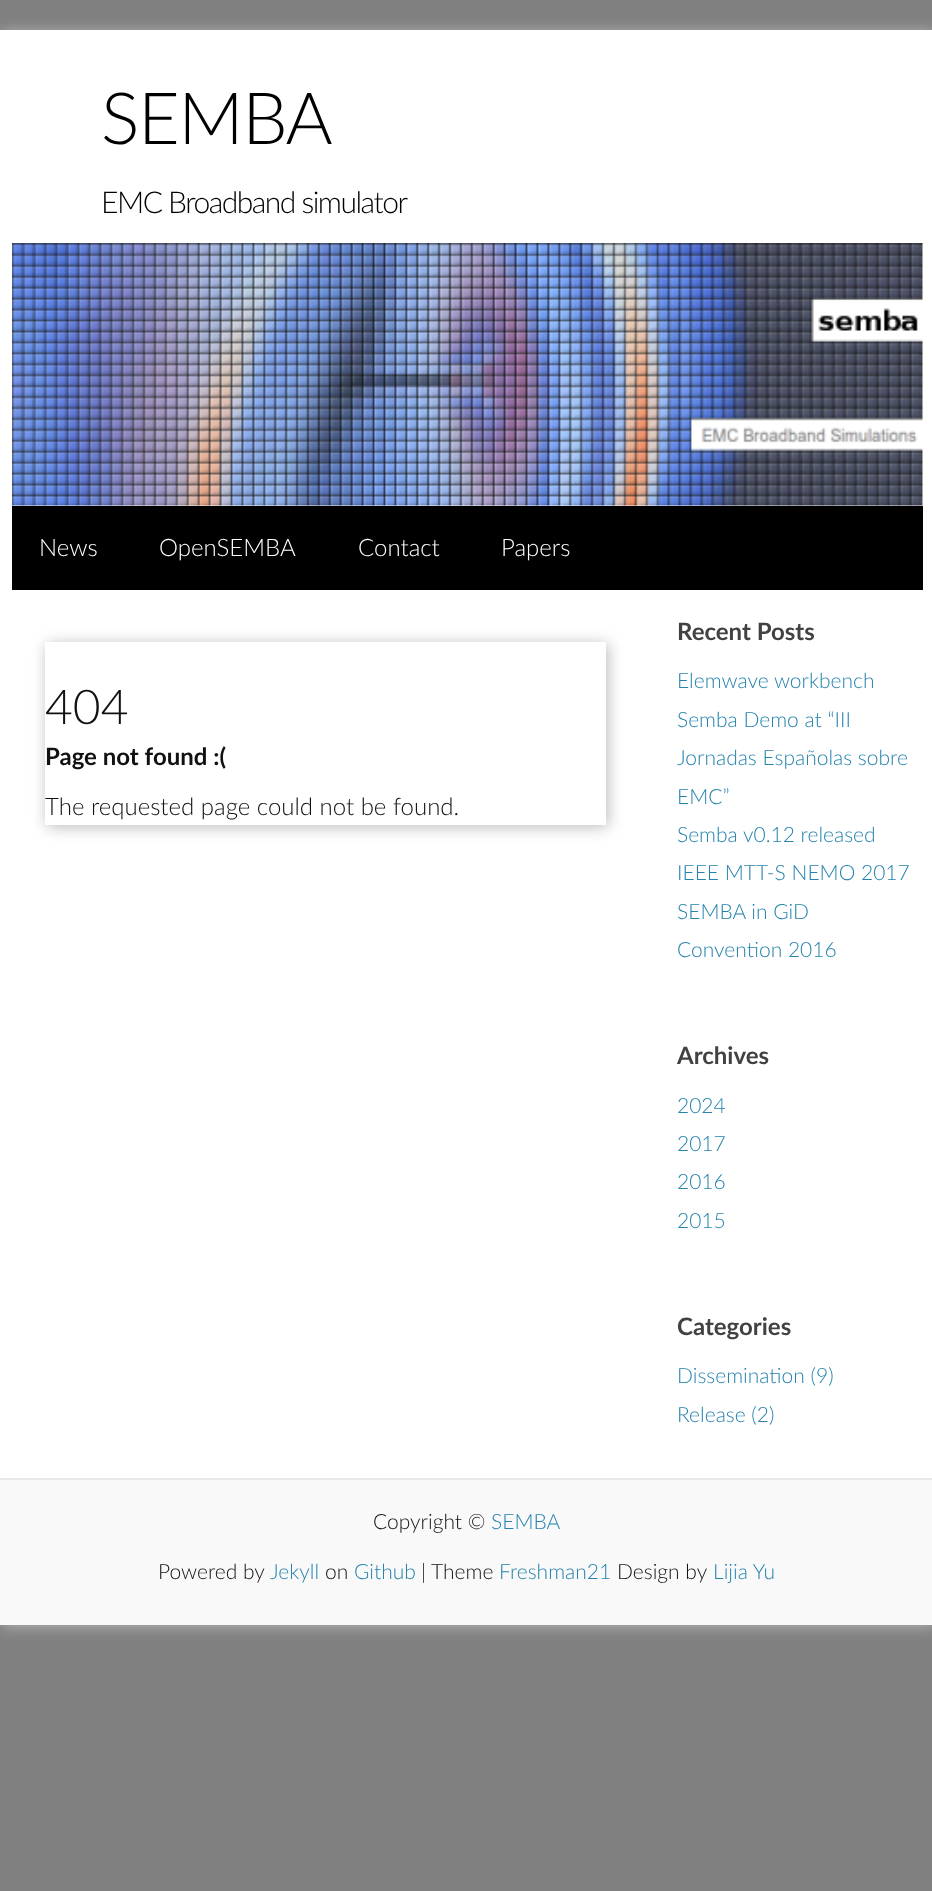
(async () => {
    const canvas = document.querySelector("canvas");
    canvas.width = 932;
    canvas.height = 1891;
    const context = canvas.getContext("2d");
    context.miterLimit = 4;
    context.fontKerning = "normal";
    function write(s, x, y, font, color) {
        context.font = font;
        context.fillStyle = color;
        context.fillText(s, x, y);
    }
    function block(x, y, w, h, color) {
        context.fillStyle = color;
        context.fillRect(x, y, w, h);
    }
    async function photo(src, x, y, w, h) {
        const img = new Image();
        img.src = src;
        await img.decode();
        context.drawImage(img, x, y, w, h);
    }

    block(0, 0, 932, 1891, "rgb(128, 128, 128)");
    context.fillStyle = "rgb(187, 187, 187)";
    context.filter = "blur(7.5px)";
    context.beginPath();
    context.rect(2, 32, 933, 1594);
    context.fill();
    context.filter = "none";
    block(0, 30, 932, 1448, "rgb(255, 255, 255)");
    context.letterSpacing = "-1.5px";
    write("SEMBA", 101, 144, "300 72px Lato", "rgb(0, 0, 0)");
    write("EMC Broadband simulator", 101, 213, "300 30px Lato", "rgb(0, 0, 0)");
    await photo("media/1.png", 12, 243, 911, 263);
    block(12, 506, 911, 84, "rgb(0, 0, 0)");
    context.letterSpacing = "0px";
    write("News", 39, 556, "300 24px Lato", "rgb(255, 255, 255)");
    write("OpenSEMBA", 159, 556, "300 24px Lato", "rgb(255, 255, 255)");
    write("Contact", 358, 556, "300 24px Lato", "rgb(255, 255, 255)");
    write("Papers", 501, 556, "300 24px Lato", "rgb(255, 255, 255)");
    context.save();
    context.beginPath();
    context.moveTo(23, 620);
    context.lineTo(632, 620);
    context.lineTo(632, 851);
    context.lineTo(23, 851);
    context.closePath();
    context.moveTo(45, 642);
    context.lineTo(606, 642);
    context.lineTo(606, 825);
    context.lineTo(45, 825);
    context.closePath();
    context.clip("evenodd");
    context.fillStyle = "rgb(187, 187, 187)";
    context.filter = "blur(7.5px)";
    context.beginPath();
    context.rect(47, 644, 561, 183);
    context.fill();
    context.filter = "none";
    context.restore();
    write("404", 45, 724, "300 48px Lato", "rgb(17, 17, 17)");
    write("Page not found :(", 45, 765, "bold 24px Lato", "rgb(17, 17, 17)");
    write("The requested page could not be found.", 45, 815, "300 24px Lato", "rgb(17, 17, 17)");
    write("Recent Posts", 677, 640, "bold 24px Lato", "rgb(66, 66, 66)");
    write("Elemwave workbench", 677, 688, "300 21px Lato", "rgb(37, 131, 173)");
    write("Semba Demo at “III", 677, 727, "300 21px Lato", "rgb(37, 131, 173)");
    write("Jornadas Españolas sobre", 677, 765, "300 21px Lato", "rgb(37, 131, 173)");
    write("EMC”", 677, 804, "300 21px Lato", "rgb(37, 131, 173)");
    write("Semba v0.12 released", 677, 842, "300 21px Lato", "rgb(37, 131, 173)");
    write("IEEE MTT-S NEMO 2017", 677, 880, "300 21px Lato", "rgb(37, 131, 173)");
    write("SEMBA in GiD", 677, 919, "300 21px Lato", "rgb(37, 131, 173)");
    write("Convention 2016", 677, 957, "300 21px Lato", "rgb(37, 131, 173)");
    write("Archives", 677, 1064, "bold 24px Lato", "rgb(66, 66, 66)");
    write("2024", 677, 1113, "300 21px Lato", "rgb(37, 131, 173)");
    write("2017", 677, 1151, "300 21px Lato", "rgb(37, 131, 173)");
    write("2016", 677, 1189, "300 21px Lato", "rgb(37, 131, 173)");
    write("2015", 677, 1228, "300 21px Lato", "rgb(37, 131, 173)");
    write("Categories", 677, 1335, "bold 24px Lato", "rgb(66, 66, 66)");
    write("Dissemination (9)", 677, 1383, "300 21px Lato", "rgb(37, 131, 173)");
    write("Release (2)", 677, 1422, "300 21px Lato", "rgb(37, 131, 173)");
    block(0, 1480, 932, 145, "rgb(249, 249, 249)");
    block(0, 1478, 932, 2, "rgb(232, 232, 232)");
    write("Copyright ©", 373, 1529, "300 21px Lato", "rgb(17, 17, 17)");
    write("SEMBA", 491, 1529, "300 21px Lato", "rgb(37, 131, 173)");
    write("Powered by", 158, 1579, "300 21px Lato", "rgb(17, 17, 17)");
    write("Jekyll", 270, 1579, "300 21px Lato", "rgb(37, 131, 173)");
    write("on", 325, 1579, "300 21px Lato", "rgb(17, 17, 17)");
    write("Github", 354, 1579, "300 21px Lato", "rgb(37, 131, 173)");
    write("| Theme", 421, 1579, "300 21px Lato", "rgb(17, 17, 17)");
    write("Freshman21", 499, 1579, "300 21px Lato", "rgb(37, 131, 173)");
    write("Design by", 617, 1579, "300 21px Lato", "rgb(17, 17, 17)");
    write("Lijia Yu", 713, 1579, "300 21px Lato", "rgb(37, 131, 173)");
})();
